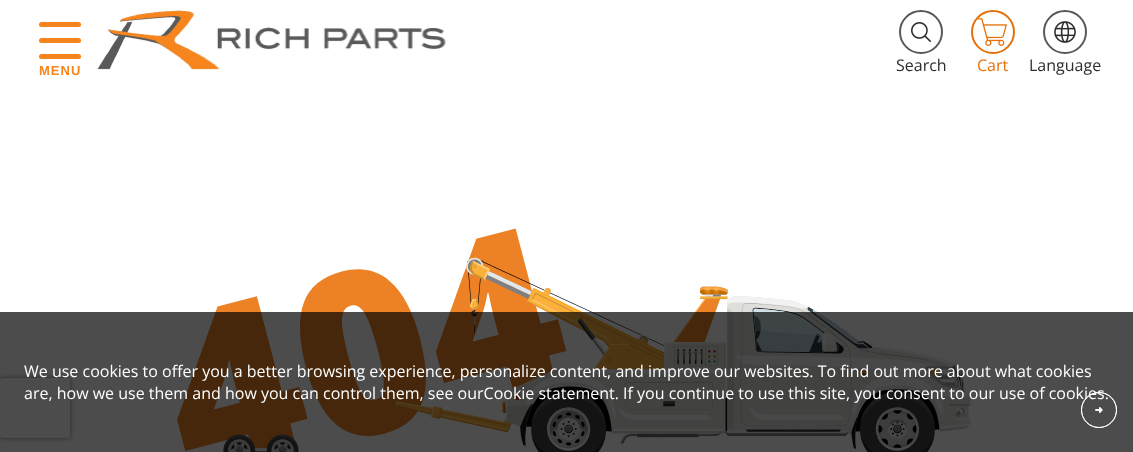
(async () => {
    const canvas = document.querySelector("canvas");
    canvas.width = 1133;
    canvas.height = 452;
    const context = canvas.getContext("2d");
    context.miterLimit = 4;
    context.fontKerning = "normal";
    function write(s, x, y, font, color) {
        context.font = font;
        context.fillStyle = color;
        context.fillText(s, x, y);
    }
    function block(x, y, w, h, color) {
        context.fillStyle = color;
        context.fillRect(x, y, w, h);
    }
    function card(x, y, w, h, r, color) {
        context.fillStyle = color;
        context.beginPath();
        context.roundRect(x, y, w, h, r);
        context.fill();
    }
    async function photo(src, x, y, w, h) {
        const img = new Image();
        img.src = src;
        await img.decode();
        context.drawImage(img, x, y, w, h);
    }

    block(0, 0, 1133, 452, "rgb(255, 255, 255)");
    card(39, 38, 42, 5, 2.5, "rgb(246, 133, 30)");
    card(39, 22, 42, 5, 2.5, "rgb(246, 133, 30)");
    card(39, 54, 42, 5, 2.5, "rgb(246, 133, 30)");
    context.letterSpacing = "1px";
    write("MENU", 39, 75, "bold 13px Liberation Sans", "rgb(246, 133, 30)");
    await photo("media/1.png", 97, 10, 349, 60);
    await photo("media/2.png", 911, 22, 20, 20);
    context.beginPath();
    context.arc(921, 32, 21, 0, Math.PI * 2);
    context.strokeStyle = "rgb(86, 88, 90)";
    context.lineWidth = 2;
    context.stroke();
    context.letterSpacing = "0px";
    write("Search", 896, 71, "16px Open Sans", "rgb(45, 45, 45)");
    await photo("media/3.png", 978, 18, 29, 28);
    context.beginPath();
    context.arc(993, 32, 21, 0, Math.PI * 2);
    context.strokeStyle = "rgb(231, 112, 8)";
    context.stroke();
    write("Cart", 977, 71, "16px Open Sans", "rgb(231, 112, 8)");
    await photo("media/4.png", 1054, 21, 22, 22);
    context.beginPath();
    context.arc(1065, 32, 21, 0, Math.PI * 2);
    context.strokeStyle = "rgb(86, 88, 90)";
    context.stroke();
    write("Language", 1029, 71, "16px Open Sans", "rgb(45, 45, 45)");
    await photo("media/5.png", 177, 228, 794, 224);
    context.save();
    context.beginPath();
    context.moveTo(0, 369);
    context.lineTo(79, 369);
    context.lineTo(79, 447);
    context.lineTo(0, 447);
    context.closePath();
    context.moveTo(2, 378);
    context.lineTo(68, 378);
    context.bezierCurveTo(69, 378, 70, 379, 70, 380);
    context.lineTo(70, 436);
    context.bezierCurveTo(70, 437, 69, 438, 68, 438);
    context.lineTo(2, 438);
    context.bezierCurveTo(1, 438, 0, 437, 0, 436);
    context.lineTo(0, 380);
    context.bezierCurveTo(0, 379, 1, 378, 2, 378);
    context.closePath();
    context.clip("evenodd");
    context.fillStyle = "rgb(128, 128, 128)";
    context.filter = "blur(2.5px)";
    context.beginPath();
    context.roundRect(0, 378, 70, 60, 2);
    context.fill();
    context.filter = "none";
    context.restore();
    block(0, 312, 1133, 140, "rgba(0, 0, 0, 0.7)");
    write("We use cookies to offer you a better browsing experience, personalize content, and improve our websites. To find out more about what cookies", 24, 377, "16px Open Sans", "rgb(255, 255, 255)");
    write("are, how we use them and how you can control them, see ourCookie statement. If you continue to use this site, you consent to our use of cookies.", 24, 399, "16px Open Sans", "rgb(255, 255, 255)");
    await photo("media/6.png", 1095, 407, 8, 6);
    context.beginPath();
    context.arc(1099, 410, 17.5, 0, Math.PI * 2);
    context.strokeStyle = "rgb(255, 255, 255)";
    context.lineWidth = 1;
    context.stroke();
    await photo("media/7.png", 1095, 407, 8, 6);
    context.beginPath();
    context.arc(1099, 410, 17.5, 0, Math.PI * 2);
    context.stroke();
})();
